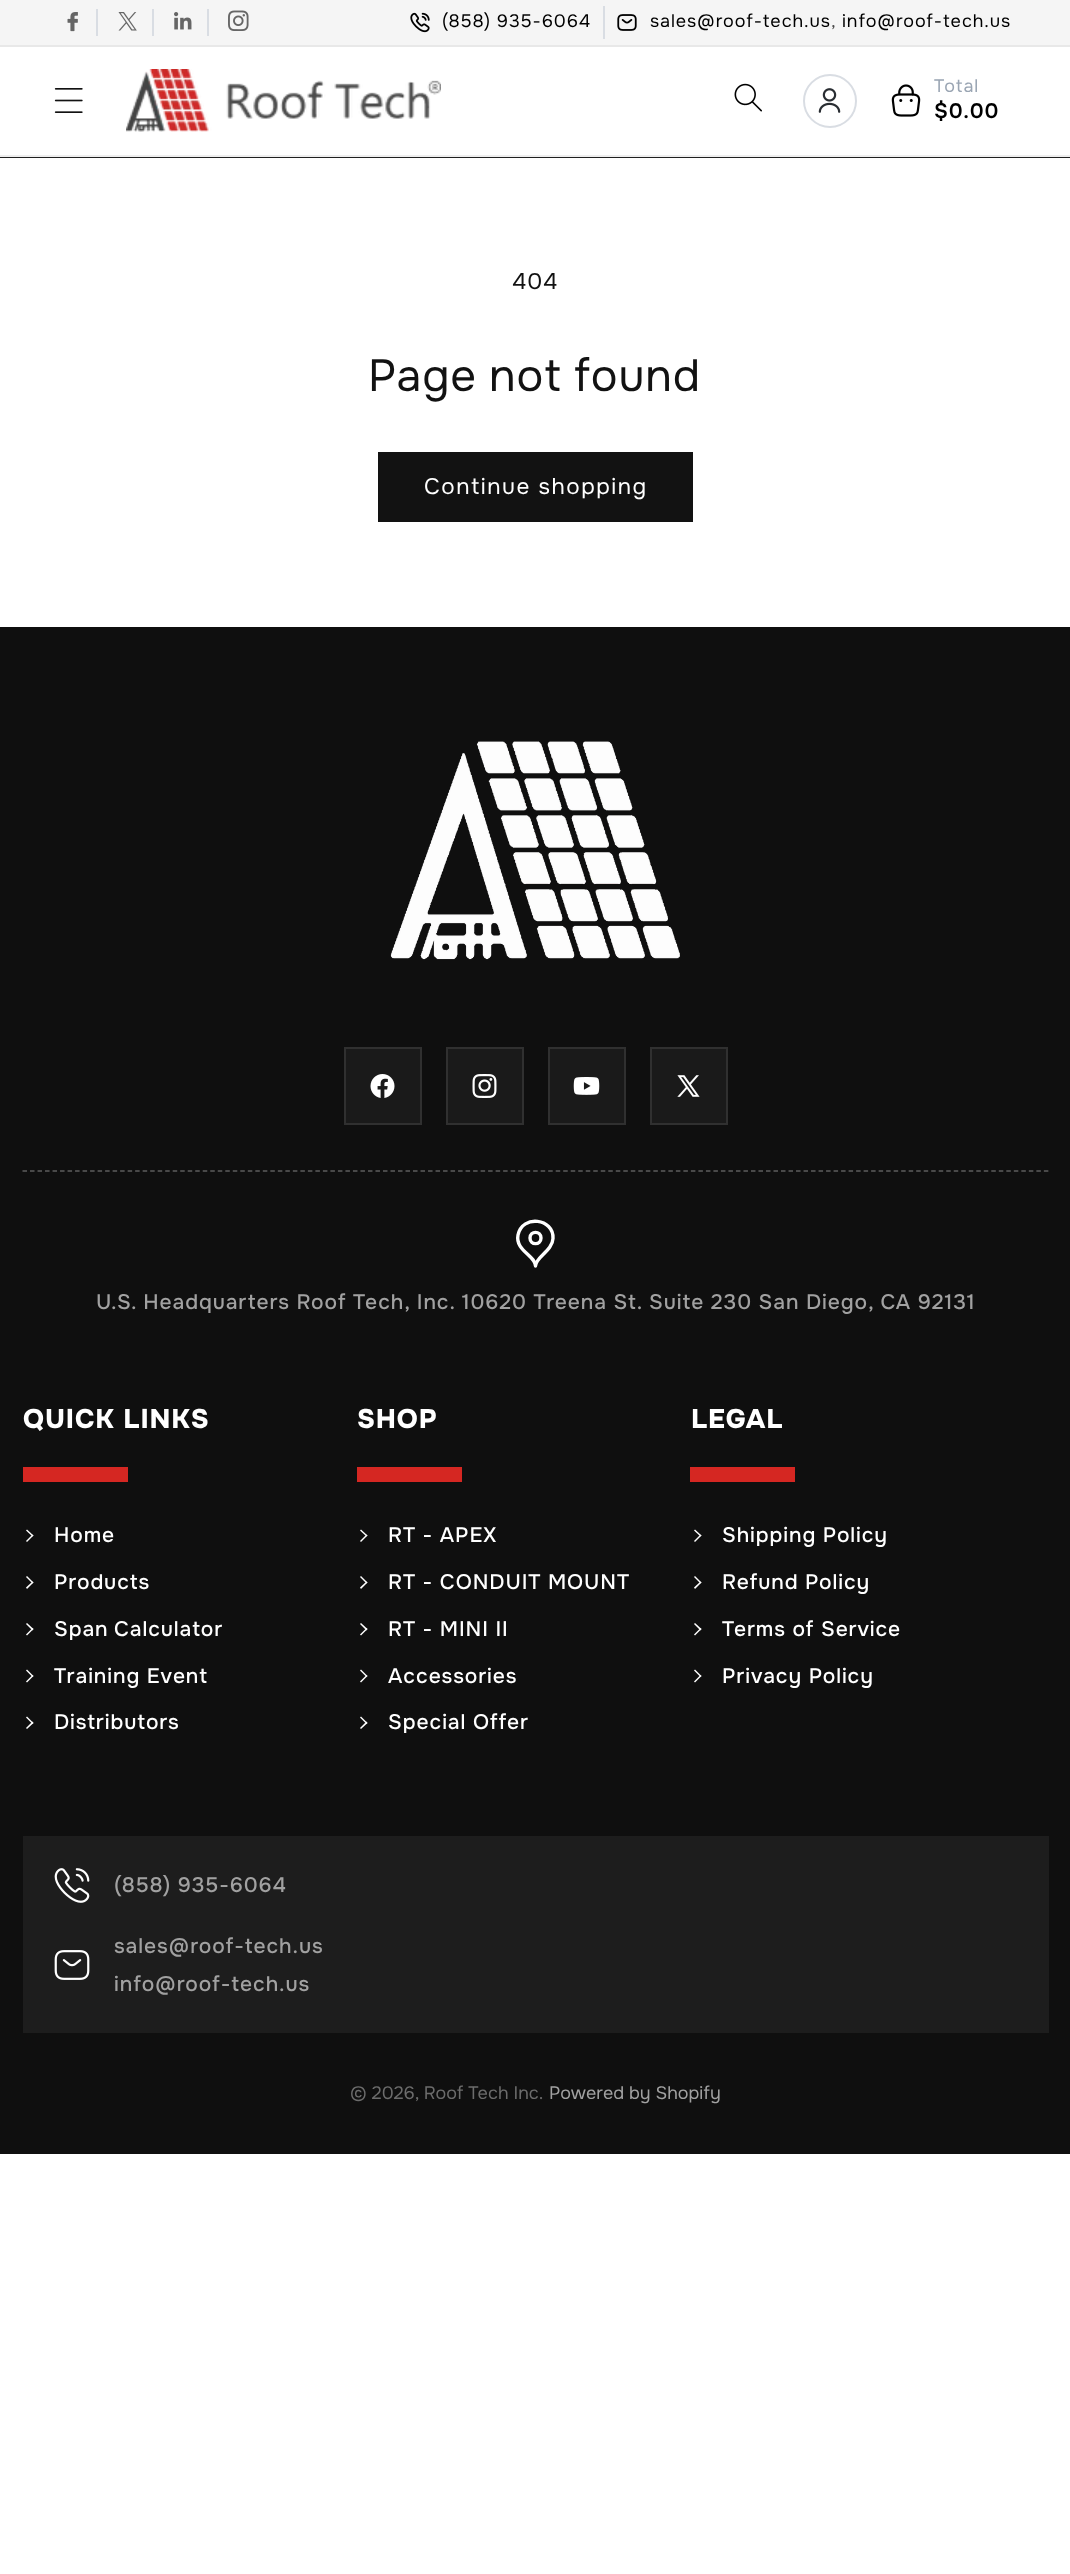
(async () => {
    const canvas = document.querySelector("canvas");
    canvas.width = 1070;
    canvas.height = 2574;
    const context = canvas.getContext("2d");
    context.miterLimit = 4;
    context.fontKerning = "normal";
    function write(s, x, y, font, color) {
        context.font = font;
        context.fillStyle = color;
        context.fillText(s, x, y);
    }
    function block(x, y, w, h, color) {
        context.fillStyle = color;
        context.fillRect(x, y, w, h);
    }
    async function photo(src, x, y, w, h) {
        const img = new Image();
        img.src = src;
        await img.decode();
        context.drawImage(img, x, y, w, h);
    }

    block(0, 0, 1070, 2574, "rgb(255, 255, 255)");
    block(0, 157, 1070, 1, "rgb(32, 32, 32)");
    block(0, 0, 1070, 45, "rgb(245, 245, 245)");
    block(0, 45, 1070, 2, "rgb(232, 232, 232)");
    block(96, 9, 2, 27, "rgb(217, 221, 227)");
    await photo("media/1.png", 67, 12, 11, 20);
    block(152, 9, 2, 27, "rgb(217, 221, 227)");
    await photo("media/2.png", 118, 12, 19, 19);
    block(207, 9, 2, 27, "rgb(217, 221, 227)");
    await photo("media/3.png", 174, 12, 18, 18);
    await photo("media/4.png", 228, 10, 21, 21);
    block(603, 6, 2, 33, "rgb(217, 221, 227)");
    await photo("media/5.png", 410, 12, 20, 21);
    context.letterSpacing = "0.9px";
    write("(858) 935-6064", 442, 27, "18px Onest", "rgb(0, 0, 0)");
    await photo("media/6.png", 617, 14, 20, 17);
    write("sales@roof-tech.us", 650, 27, "18px Onest", "rgb(0, 0, 0)");
    write(",", 831, 27, "18px Onest", "rgb(75, 75, 75)");
    write("info@roof-tech.us", 842, 27, "18px Onest", "rgb(0, 0, 0)");
    block(0, 155, 1070, 2, "rgb(238, 238, 238)");
    await photo("media/7.png", 54, 88, 29, 25);
    await photo("media/8.png", 126, 69, 315, 63);
    await photo("media/9.png", 734, 83, 28, 29);
    context.beginPath();
    context.arc(830, 101, 26, 0, Math.PI * 2);
    context.strokeStyle = "rgb(217, 221, 227)";
    context.lineWidth = 2;
    context.stroke();
    await photo("media/10.png", 818, 88, 23, 25);
    await photo("media/11.png", 891, 84, 30, 33);
    write("Total", 934, 92, "18px Onest", "rgb(154, 165, 179)");
    write("$0.00", 934, 118, "600 21px Onest", "rgb(0, 0, 0)");
    write("404", 512, 289, "22.5px Onest", "rgb(18, 18, 18)");
    context.wordSpacing = "-1px";
    write("Page not found", 368, 391, "45px Onest", "rgb(18, 18, 18)");
    block(378, 452, 315, 70, "rgb(18, 18, 18)");
    context.letterSpacing = "1.5px";
    context.wordSpacing = "0px";
    write("Continue shopping", 424, 494, "22.5px Onest", "rgb(255, 255, 255)");
    block(0, 627, 1070, 1527, "rgb(15, 15, 15)");
    await photo("media/12.png", 390, 741, 290, 219);
    context.fillStyle = "rgb(26, 26, 26)";
    context.beginPath();
    context.rect(345, 1048, 76, 76);
    context.fill();
    context.strokeStyle = "rgb(48, 48, 48)";
    context.stroke();
    await photo("media/13.png", 370, 1074, 25, 24);
    context.beginPath();
    context.rect(447, 1048, 76, 76);
    context.fill();
    context.stroke();
    await photo("media/14.png", 472, 1074, 25, 24);
    context.beginPath();
    context.rect(549, 1048, 76, 76);
    context.fill();
    context.stroke();
    await photo("media/15.png", 573, 1077, 27, 18);
    context.beginPath();
    context.rect(651, 1048, 76, 76);
    context.fill();
    context.stroke();
    await photo("media/16.png", 677, 1075, 23, 22);
    context.beginPath();
    context.moveTo(22.5, 1171);
    context.lineTo(1048.5, 1171);
    context.strokeStyle = "rgb(94, 94, 94)";
    context.lineWidth = 1.5;
    context.setLineDash([4.5, 3.01]);
    context.stroke();
    context.beginPath();
    context.moveTo(535.5, 1266);
    context.bezierCurveTo(535.5, 1257, 552.5, 1251, 553, 1238.5);
    context.bezierCurveTo(554, 1218.5, 522.5, 1214, 518, 1235);
    context.bezierCurveTo(515, 1250.5, 535.5, 1255.5, 535.5, 1266);
    context.closePath();
    context.moveTo(541, 1238);
    context.bezierCurveTo(541, 1245.5, 530, 1245.5, 530, 1238);
    context.bezierCurveTo(530, 1230.5, 541, 1230.5, 541, 1238);
    context.closePath();
    context.strokeStyle = "rgb(255, 255, 255)";
    context.lineWidth = 3.4;
    context.lineJoin = "round";
    context.setLineDash([]);
    context.stroke();
    context.letterSpacing = "0.9px";
    write("U.S. Headquarters Roof Tech, Inc. 10620 Treena St. Suite 230 San Diego, CA 92131", 96, 1309, "500 21px Onest", "rgb(161, 161, 161)");
    write("QUICK LINKS", 23, 1428, "800 27px Onest", "rgb(255, 255, 255)");
    block(23, 1467, 105, 15, "rgb(213, 39, 34)");
    context.fillStyle = "rgb(255, 255, 255)";
    context.beginPath();
    context.moveTo(33.5, 1535.5);
    context.lineTo(27, 1542);
    context.lineTo(26, 1541);
    context.lineTo(32.5, 1534.5);
    context.closePath();
    context.fill();
    context.beginPath();
    context.moveTo(33.5, 1535.5);
    context.lineTo(32.5, 1536.5);
    context.lineTo(26, 1530.5);
    context.lineTo(27, 1529.5);
    context.closePath();
    context.fill();
    write("Home", 54, 1542, "500 21px Onest", "rgb(255, 255, 255)");
    context.beginPath();
    context.moveTo(33.5, 1582.5);
    context.lineTo(27, 1589);
    context.lineTo(26, 1587.5);
    context.lineTo(32.5, 1581.5);
    context.closePath();
    context.fill();
    context.beginPath();
    context.moveTo(33.5, 1582.5);
    context.lineTo(32.5, 1583.5);
    context.lineTo(26, 1577);
    context.lineTo(27, 1576);
    context.closePath();
    context.fill();
    write("Products", 54, 1589, "500 21px Onest", "rgb(255, 255, 255)");
    context.beginPath();
    context.moveTo(33.5, 1629);
    context.lineTo(27, 1635.5);
    context.lineTo(26, 1634.5);
    context.lineTo(32.5, 1628);
    context.closePath();
    context.fill();
    context.beginPath();
    context.moveTo(33.5, 1629);
    context.lineTo(32.5, 1630.5);
    context.lineTo(26, 1624);
    context.lineTo(27, 1623);
    context.closePath();
    context.fill();
    context.wordSpacing = "-1px";
    write("Span Calculator", 54, 1636, "500 21px Onest", "rgb(255, 255, 255)");
    context.beginPath();
    context.moveTo(33.5, 1676);
    context.lineTo(27, 1682.5);
    context.lineTo(26, 1681.5);
    context.lineTo(32.5, 1675);
    context.closePath();
    context.fill();
    context.beginPath();
    context.moveTo(33.5, 1676);
    context.lineTo(32.5, 1677);
    context.lineTo(26, 1670.5);
    context.lineTo(27, 1669.5);
    context.closePath();
    context.fill();
    context.wordSpacing = "0px";
    write("Training Event", 54, 1683, "500 21px Onest", "rgb(255, 255, 255)");
    context.beginPath();
    context.moveTo(33.5, 1723);
    context.lineTo(27, 1729);
    context.lineTo(26, 1728);
    context.lineTo(32.5, 1721.5);
    context.closePath();
    context.fill();
    context.beginPath();
    context.moveTo(33.5, 1723);
    context.lineTo(32.5, 1724);
    context.lineTo(26, 1717.5);
    context.lineTo(27, 1716.5);
    context.closePath();
    context.fill();
    write("Distributors", 54, 1729, "500 21px Onest", "rgb(255, 255, 255)");
    write("SHOP", 357, 1428, "800 27px Onest", "rgb(255, 255, 255)");
    block(357, 1467, 105, 15, "rgb(213, 39, 34)");
    context.fillStyle = "rgb(255, 255, 255)";
    context.beginPath();
    context.moveTo(367.5, 1535.5);
    context.lineTo(361, 1542);
    context.lineTo(360, 1541);
    context.lineTo(366.5, 1534.5);
    context.closePath();
    context.fill();
    context.beginPath();
    context.moveTo(367.5, 1535.5);
    context.lineTo(366.5, 1536.5);
    context.lineTo(360, 1530.5);
    context.lineTo(361, 1529.5);
    context.closePath();
    context.fill();
    write("RT - APEX", 388, 1542, "500 21px Onest", "rgb(255, 255, 255)");
    context.beginPath();
    context.moveTo(367.5, 1582.5);
    context.lineTo(361, 1589);
    context.lineTo(360, 1587.5);
    context.lineTo(366.5, 1581.5);
    context.closePath();
    context.fill();
    context.beginPath();
    context.moveTo(367.5, 1582.5);
    context.lineTo(366.5, 1583.5);
    context.lineTo(360, 1577);
    context.lineTo(361, 1576);
    context.closePath();
    context.fill();
    write("RT - CONDUIT MOUNT", 388, 1589, "500 21px Onest", "rgb(255, 255, 255)");
    context.beginPath();
    context.moveTo(367.5, 1629);
    context.lineTo(361, 1635.5);
    context.lineTo(360, 1634.5);
    context.lineTo(366.5, 1628);
    context.closePath();
    context.fill();
    context.beginPath();
    context.moveTo(367.5, 1629);
    context.lineTo(366.5, 1630.5);
    context.lineTo(360, 1624);
    context.lineTo(361, 1623);
    context.closePath();
    context.fill();
    write("RT - MINI II", 388, 1636, "500 21px Onest", "rgb(255, 255, 255)");
    context.beginPath();
    context.moveTo(367.5, 1676);
    context.lineTo(361, 1682.5);
    context.lineTo(360, 1681.5);
    context.lineTo(366.5, 1675);
    context.closePath();
    context.fill();
    context.beginPath();
    context.moveTo(367.5, 1676);
    context.lineTo(366.5, 1677);
    context.lineTo(360, 1670.5);
    context.lineTo(361, 1669.5);
    context.closePath();
    context.fill();
    write("Accessories", 388, 1683, "500 21px Onest", "rgb(255, 255, 255)");
    context.beginPath();
    context.moveTo(367.5, 1723);
    context.lineTo(361, 1729);
    context.lineTo(360, 1728);
    context.lineTo(366.5, 1721.5);
    context.closePath();
    context.fill();
    context.beginPath();
    context.moveTo(367.5, 1723);
    context.lineTo(366.5, 1724);
    context.lineTo(360, 1717.5);
    context.lineTo(361, 1716.5);
    context.closePath();
    context.fill();
    write("Special Offer", 388, 1729, "500 21px Onest", "rgb(255, 255, 255)");
    write("LEGAL", 691, 1428, "800 27px Onest", "rgb(255, 255, 255)");
    block(690, 1467, 105, 15, "rgb(213, 39, 34)");
    context.fillStyle = "rgb(255, 255, 255)";
    context.beginPath();
    context.moveTo(701.5, 1535.5);
    context.lineTo(695, 1542);
    context.lineTo(694, 1541);
    context.lineTo(700.5, 1534.5);
    context.closePath();
    context.fill();
    context.beginPath();
    context.moveTo(701.5, 1535.5);
    context.lineTo(700.5, 1536.5);
    context.lineTo(694, 1530.5);
    context.lineTo(695, 1529.5);
    context.closePath();
    context.fill();
    write("Shipping Policy", 722, 1542, "500 21px Onest", "rgb(255, 255, 255)");
    context.beginPath();
    context.moveTo(701.5, 1582.5);
    context.lineTo(695, 1589);
    context.lineTo(694, 1587.5);
    context.lineTo(700.5, 1581.5);
    context.closePath();
    context.fill();
    context.beginPath();
    context.moveTo(701.5, 1582.5);
    context.lineTo(700.5, 1583.5);
    context.lineTo(694, 1577);
    context.lineTo(695, 1576);
    context.closePath();
    context.fill();
    write("Refund Policy", 722, 1589, "500 21px Onest", "rgb(255, 255, 255)");
    context.beginPath();
    context.moveTo(701.5, 1629);
    context.lineTo(695, 1635.5);
    context.lineTo(694, 1634.5);
    context.lineTo(700.5, 1628);
    context.closePath();
    context.fill();
    context.beginPath();
    context.moveTo(701.5, 1629);
    context.lineTo(700.5, 1630.5);
    context.lineTo(694, 1624);
    context.lineTo(695, 1623);
    context.closePath();
    context.fill();
    write("Terms of Service", 722, 1636, "500 21px Onest", "rgb(255, 255, 255)");
    context.beginPath();
    context.moveTo(701.5, 1676);
    context.lineTo(695, 1682.5);
    context.lineTo(694, 1681.5);
    context.lineTo(700.5, 1675);
    context.closePath();
    context.fill();
    context.beginPath();
    context.moveTo(701.5, 1676);
    context.lineTo(700.5, 1677);
    context.lineTo(694, 1670.5);
    context.lineTo(695, 1669.5);
    context.closePath();
    context.fill();
    write("Privacy Policy", 722, 1683, "500 21px Onest", "rgb(255, 255, 255)");
    block(23, 1836, 1026, 197, "rgb(29, 29, 29)");
    await photo("media/17.png", 54, 1868, 36, 35);
    write("(858) 935-6064", 114, 1892, "500 21px Onest", "rgb(161, 161, 161)");
    await photo("media/18.png", 54, 1950, 36, 30);
    write("sales@roof-tech.us", 114, 1953, "500 21px Onest", "rgb(161, 161, 161)");
    write("info@roof-tech.us", 114, 1991, "500 21px Onest", "rgb(161, 161, 161)");
    context.letterSpacing = "0px";
    write("© 2026, Roof Tech Inc.", 350, 2099, "18px Onest", "rgb(108, 108, 108)");
    write("Powered by Shopify", 549, 2099, "18px Onest", "rgb(161, 161, 161)");
})();
